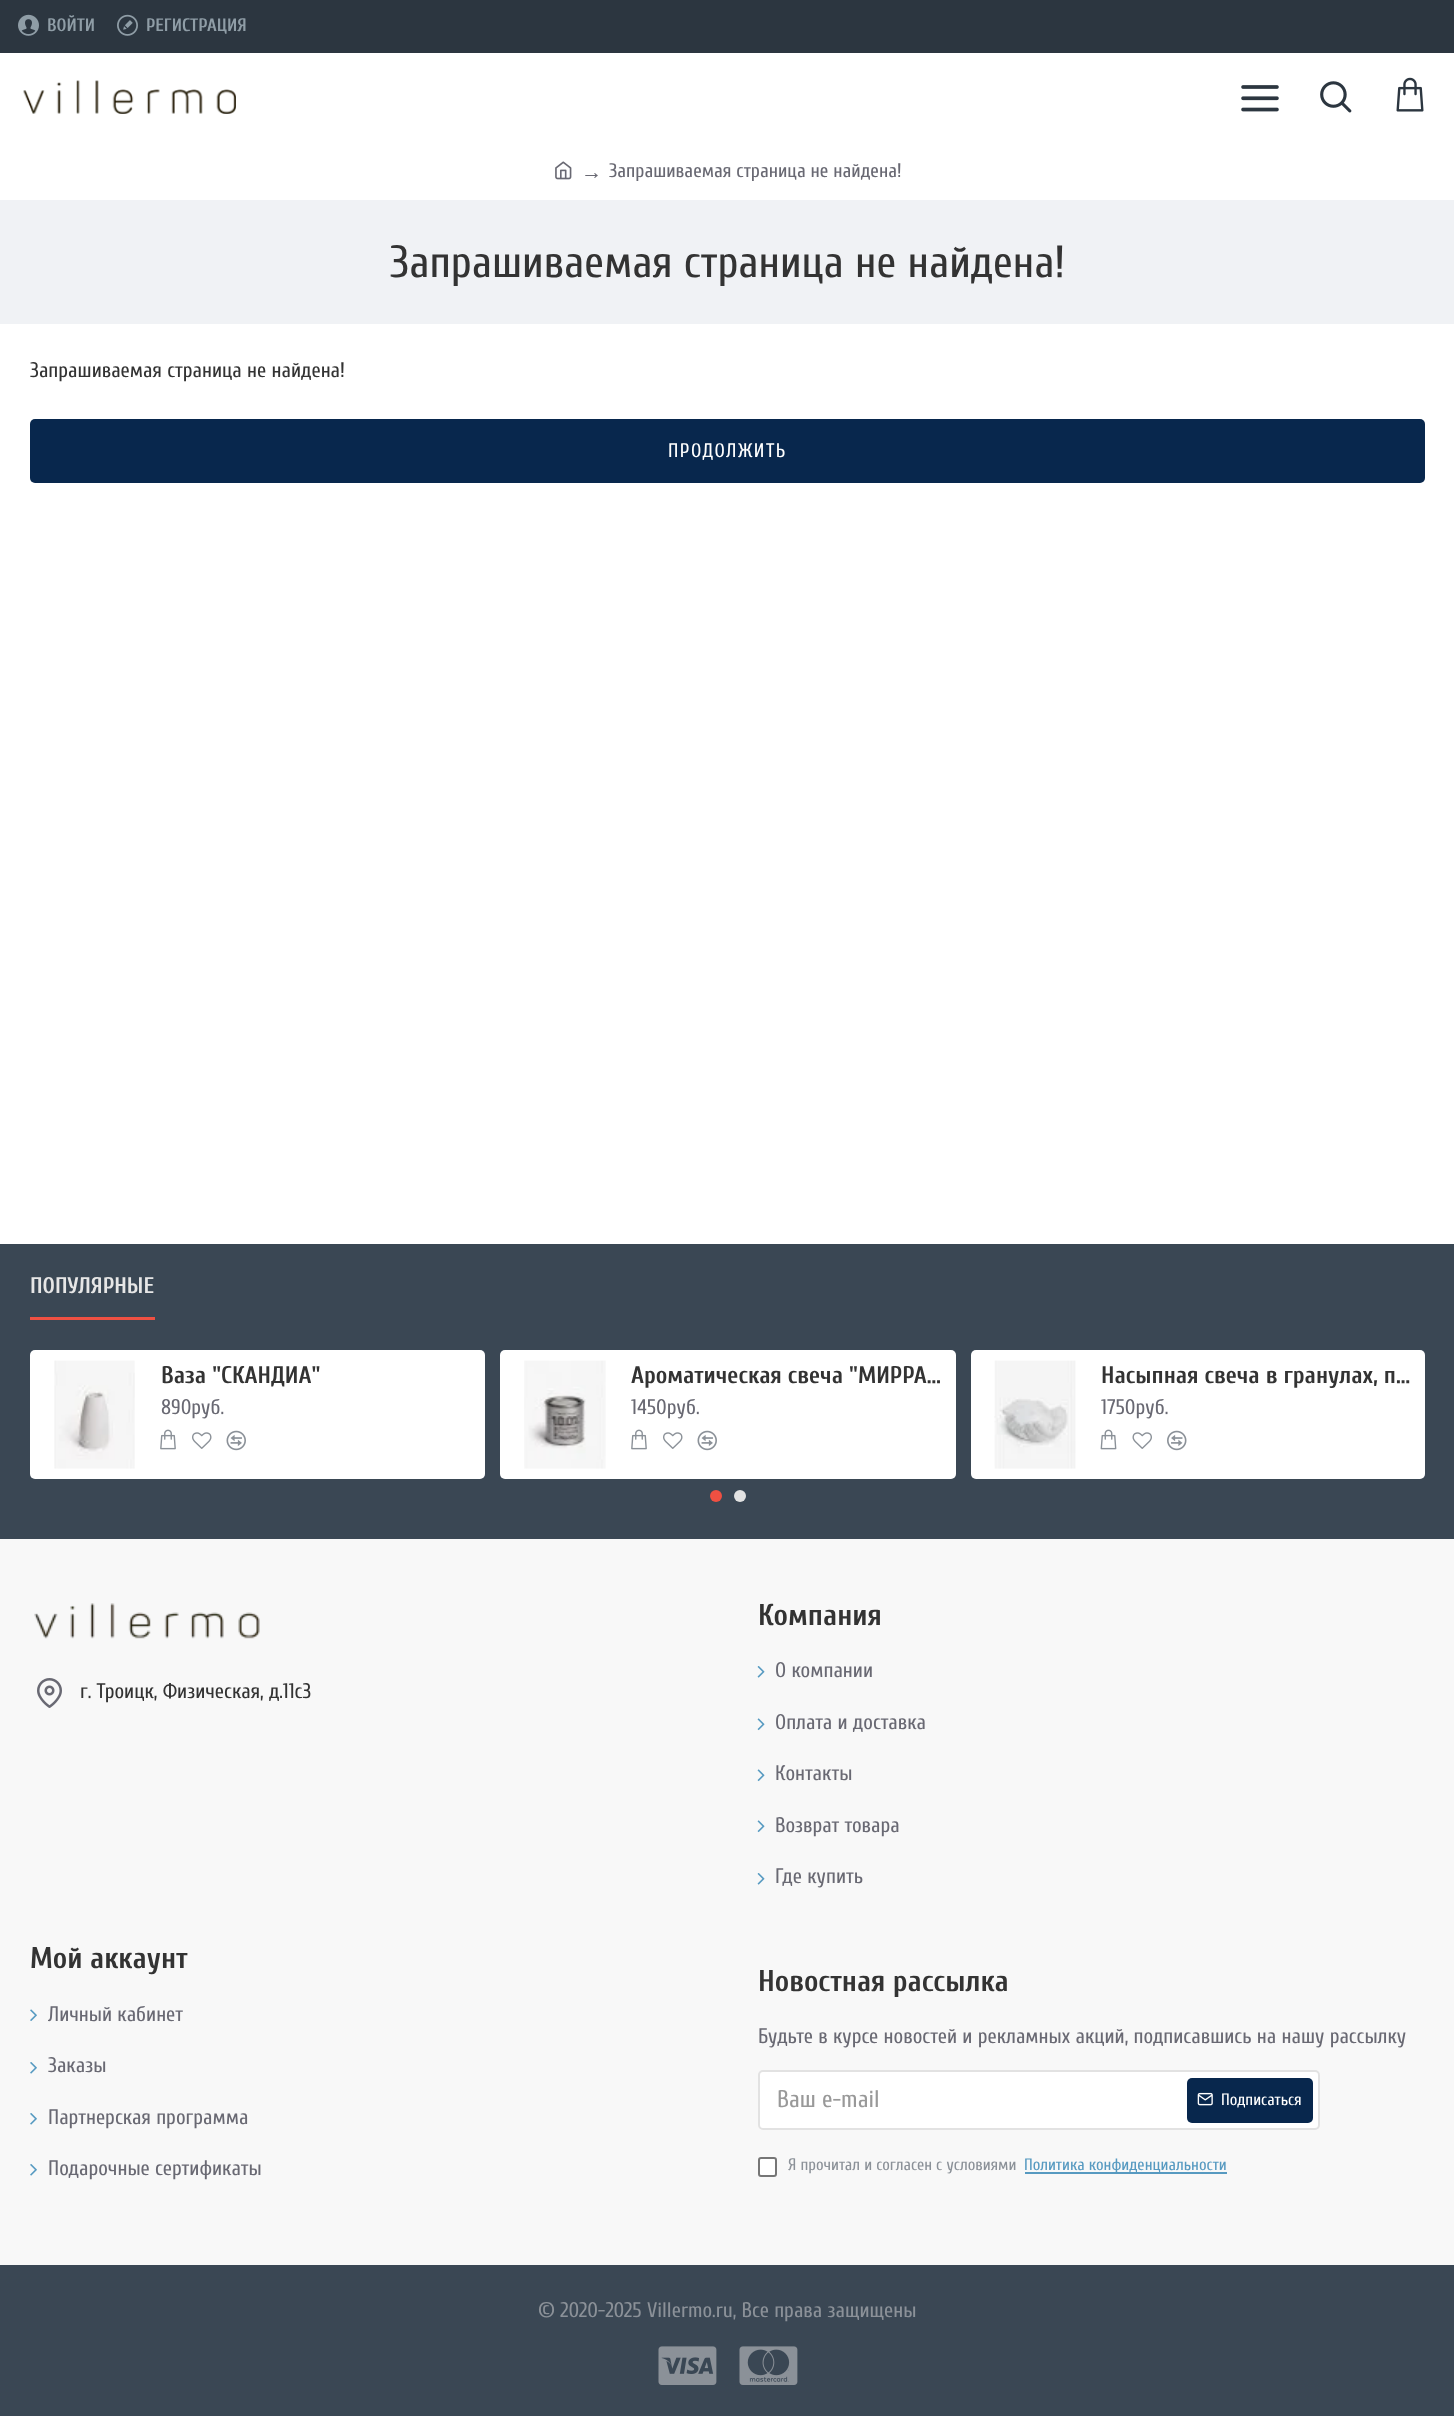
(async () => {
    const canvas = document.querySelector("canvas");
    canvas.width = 1454;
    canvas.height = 2416;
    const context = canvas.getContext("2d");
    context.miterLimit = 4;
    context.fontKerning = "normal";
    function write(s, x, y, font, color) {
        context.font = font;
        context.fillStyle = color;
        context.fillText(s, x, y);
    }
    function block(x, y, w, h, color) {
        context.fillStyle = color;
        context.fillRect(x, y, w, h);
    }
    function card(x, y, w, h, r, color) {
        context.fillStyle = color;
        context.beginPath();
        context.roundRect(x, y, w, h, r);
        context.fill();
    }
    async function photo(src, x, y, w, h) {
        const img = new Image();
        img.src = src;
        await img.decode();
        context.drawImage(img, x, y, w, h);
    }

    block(0, 0, 1454, 2416, "rgb(255, 255, 255)");
    block(0, 0, 1454, 53, "rgb(44, 54, 64)");
    await photo("media/1.png", 18, 14, 21, 22);
    write("ВОЙТИ", 47, 31, "bold 18px Cuprum", "rgb(143, 157, 166)");
    await photo("media/2.png", 117, 14, 21, 22);
    write("РЕГИСТРАЦИЯ", 146, 31, "bold 18px Cuprum", "rgb(143, 157, 166)");
    await photo("media/3.png", 23, 80, 213, 34);
    await photo("media/4.png", 1241, 85, 38, 27);
    await photo("media/5.png", 1320, 81, 32, 32);
    await photo("media/6.png", 1396, 77, 28, 35);
    await photo("media/7.png", 555, 161, 17, 19);
    write("→", 581, 179, "21px Liberation Serif", "rgb(105, 105, 115)");
    write("Запрашиваемая страница не найдена!", 609, 177, "19.5px Cuprum", "rgb(105, 105, 115)");
    block(0, 200, 1454, 124, "rgb(240, 242, 245)");
    write("Запрашиваемая страница не найдена!", 390, 277, "45px Cuprum", "rgb(51, 51, 51)");
    write("Запрашиваемая страница не найдена!", 30, 377, "21px Cuprum", "rgb(51, 51, 51)");
    card(30, 419, 1395, 64, 5, "rgb(8, 39, 77)");
    context.letterSpacing = "1.5px";
    write("ПРОДОЛЖИТЬ", 668, 457, "19.5px Cuprum", "rgb(255, 255, 255)");
    block(0, 1539, 1454, 726, "rgb(248, 248, 248)");
    block(0, 1244, 1454, 295, "rgb(58, 71, 84)");
    block(30, 1317, 125, 3, "rgb(239, 80, 66)");
    context.letterSpacing = "0px";
    write("ПОПУЛЯРНЫЕ", 30, 1293, "bold 22.5px Cuprum", "rgb(230, 230, 230)");
    card(30, 1350, 455, 129, 5, "rgb(255, 255, 255)");
    await photo("media/8.png", 54, 1360, 81, 109);
    write("Ваза \"СКАНДИА\"", 161, 1383, "bold 24px Cuprum", "rgb(51, 51, 51)");
    write("890руб.", 161, 1414, "21px Cuprum", "rgb(105, 105, 115)");
    await photo("media/9.png", 160, 1429, 16, 21);
    await photo("media/10.png", 192, 1432, 20, 17);
    await photo("media/11.png", 226, 1430, 20, 21);
    card(500, 1350, 456, 129, 5, "rgb(255, 255, 255)");
    await photo("media/12.png", 524, 1360, 82, 109);
    write("Ароматическая свеча \"МИРРА…", 631, 1383, "bold 24px Cuprum", "rgb(51, 51, 51)");
    write("1450руб.", 631, 1414, "21px Cuprum", "rgb(105, 105, 115)");
    await photo("media/9.png", 631, 1429, 16, 21);
    await photo("media/10.png", 663, 1432, 20, 17);
    await photo("media/11.png", 697, 1430, 20, 21);
    card(971, 1350, 454, 129, 5, "rgb(255, 255, 255)");
    await photo("media/13.png", 994, 1360, 82, 109);
    write("Насыпная свеча в гранулах, п…", 1101, 1383, "bold 24px Cuprum", "rgb(51, 51, 51)");
    write("1750руб.", 1101, 1414, "21px Cuprum", "rgb(105, 105, 115)");
    await photo("media/14.png", 1100, 1429, 17, 21);
    await photo("media/15.png", 1132, 1432, 20, 17);
    await photo("media/16.png", 1167, 1430, 20, 21);
    context.fillStyle = "rgb(239, 80, 66)";
    context.beginPath();
    context.arc(716, 1496, 6, 0, Math.PI * 2);
    context.fill();
    context.fillStyle = "rgb(226, 226, 226)";
    context.beginPath();
    context.arc(740, 1496, 6, 0, Math.PI * 2);
    context.fill();
    await photo("media/17.png", 34, 1603, 226, 36);
    await photo("media/18.png", 37, 1678, 25, 30);
    write("г. Троицк, Физическая, д.11с3", 80, 1698, "21px Cuprum", "rgb(51, 51, 51)");
    write("Компания", 758, 1625, "bold 30px Cuprum", "rgb(51, 51, 51)");
    await photo("media/19.png", 757, 1666, 8, 12);
    write("О компании", 775, 1677, "21px Cuprum", "rgb(105, 105, 115)");
    await photo("media/20.png", 757, 1718, 8, 13);
    write("Оплата и доставка", 775, 1729, "21px Cuprum", "rgb(105, 105, 115)");
    await photo("media/20.png", 757, 1769, 8, 13);
    write("Контакты", 775, 1780, "21px Cuprum", "rgb(105, 105, 115)");
    await photo("media/20.png", 757, 1820, 8, 13);
    write("Возврат товара", 775, 1832, "21px Cuprum", "rgb(105, 105, 115)");
    await photo("media/19.png", 757, 1873, 8, 12);
    write("Где купить", 775, 1883, "21px Cuprum", "rgb(105, 105, 115)");
    write("Мой аккаунт", 30, 1968, "bold 30px Cuprum", "rgb(51, 51, 51)");
    await photo("media/21.png", 30, 2009, 7, 12);
    write("Личный кабинет", 48, 2021, "21px Cuprum", "rgb(105, 105, 115)");
    await photo("media/22.png", 30, 2062, 7, 12);
    write("Заказы", 48, 2072, "21px Cuprum", "rgb(105, 105, 115)");
    await photo("media/22.png", 30, 2113, 7, 12);
    write("Партнерская программа", 48, 2124, "21px Cuprum", "rgb(105, 105, 115)");
    await photo("media/22.png", 30, 2164, 7, 12);
    write("Подарочные сертификаты", 48, 2175, "21px Cuprum", "rgb(105, 105, 115)");
    write("Новостная рассылка", 758, 1991, "bold 30px Cuprum", "rgb(51, 51, 51)");
    write("Будьте в курсе новостей и рекламных акций, подписавшись на нашу рассылку", 758, 2043, "21px Cuprum", "rgb(105, 105, 115)");
    context.fillStyle = "rgb(255, 255, 255)";
    context.beginPath();
    context.roundRect(759, 2071, 560, 58, 4);
    context.fill();
    context.strokeStyle = "rgb(226, 226, 226)";
    context.lineWidth = 2;
    context.stroke();
    write("Ваш e-mail", 777, 2107, "24px Cuprum", "rgb(153, 153, 153)");
    card(1187, 2078, 126, 45, 5, "rgb(8, 39, 77)");
    await photo("media/23.png", 1197, 2092, 16, 14);
    write("Подписаться", 1221, 2105, "16.5px Cuprum", "rgb(255, 255, 255)");
    context.beginPath();
    context.roundRect(759, 2158, 17, 18, 2);
    context.fill();
    context.strokeStyle = "rgb(118, 118, 118)";
    context.stroke();
    write("Я прочитал и согласен с условиями", 788, 2170, "16.5px Cuprum", "rgb(139, 145, 152)");
    block(1025, 2172, 202, 2, "rgb(87, 154, 193)");
    write("Политика конфиденциальности", 1024, 2170, "16.5px Cuprum", "rgb(87, 154, 193)");
    block(0, 2265, 1454, 151, "rgb(58, 71, 84)");
    write("© 2020-2025 Villermo.ru, Все права защищены", 538, 2317, "21px Cuprum", "rgb(139, 145, 152)");
    await photo("media/24.png", 658, 2346, 59, 39);
    await photo("media/25.png", 739, 2346, 59, 39);
})();
